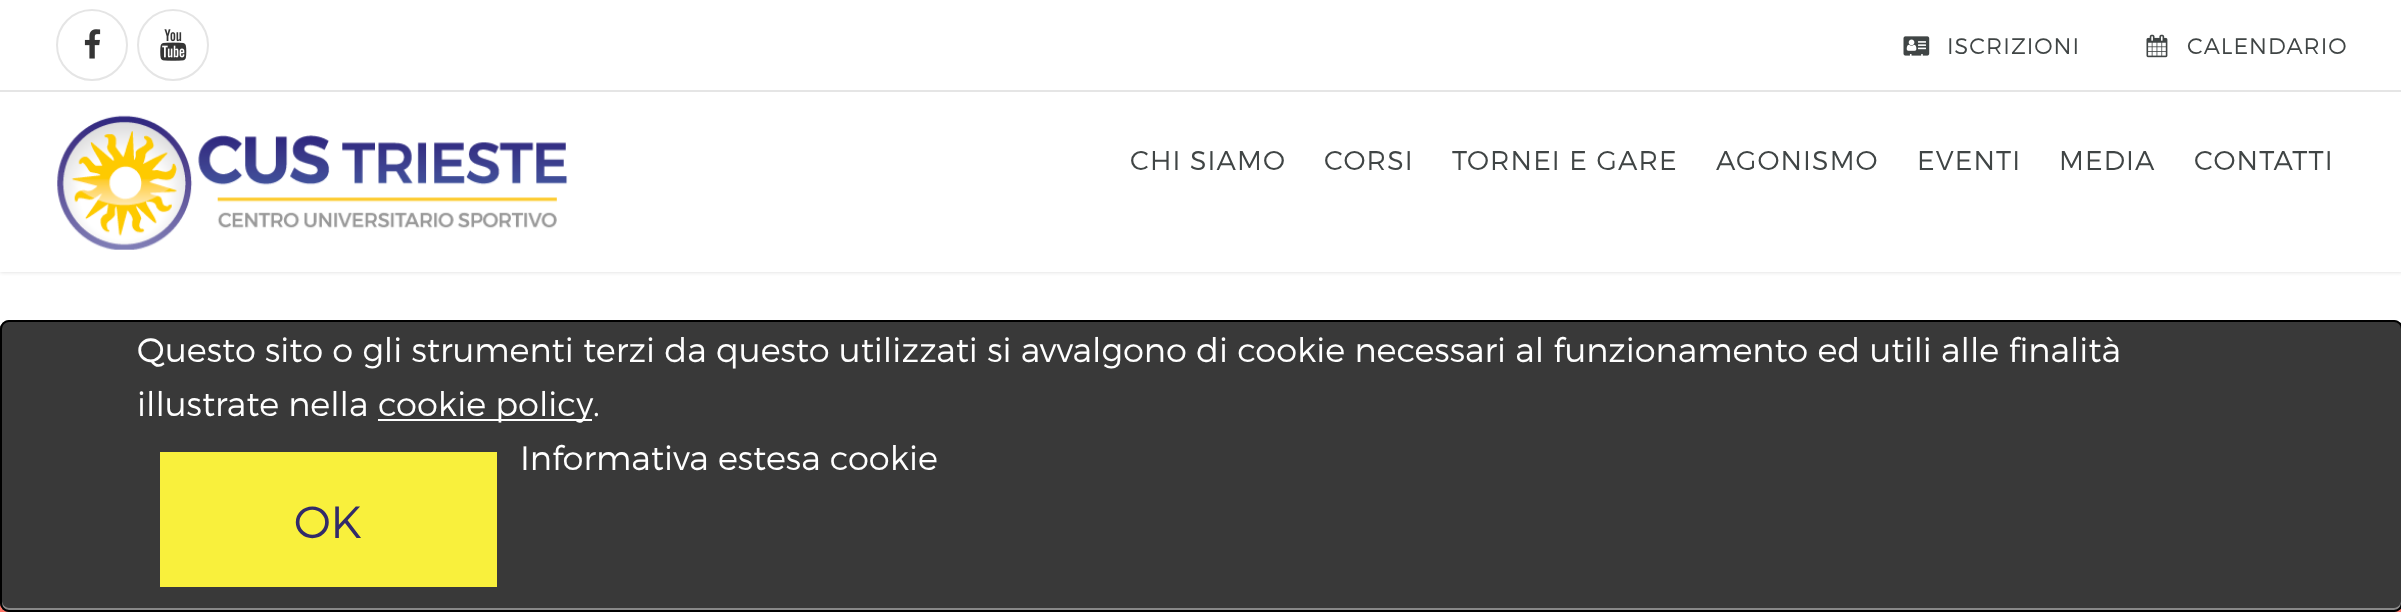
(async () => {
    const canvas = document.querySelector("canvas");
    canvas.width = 2401;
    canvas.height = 612;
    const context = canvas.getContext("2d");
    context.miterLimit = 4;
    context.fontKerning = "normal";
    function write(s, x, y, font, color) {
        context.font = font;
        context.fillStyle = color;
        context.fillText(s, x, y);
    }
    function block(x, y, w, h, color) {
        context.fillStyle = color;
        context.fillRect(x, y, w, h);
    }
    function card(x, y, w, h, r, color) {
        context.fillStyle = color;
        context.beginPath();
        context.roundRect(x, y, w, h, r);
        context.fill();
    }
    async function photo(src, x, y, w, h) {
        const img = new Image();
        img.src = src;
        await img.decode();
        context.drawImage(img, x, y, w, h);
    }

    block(0, 0, 2401, 612, "rgb(255, 255, 255)");
    context.fillStyle = "rgba(0, 0, 0, 0.15)";
    context.filter = "blur(2px)";
    context.beginPath();
    context.rect(0, 0, 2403, 272);
    context.fill();
    context.filter = "none";
    block(0, 0, 2401, 272, "rgb(255, 255, 255)");
    block(0, 90, 2401, 2, "rgb(229, 229, 229)");
    context.beginPath();
    context.arc(92, 45, 35, 0, Math.PI * 2);
    context.strokeStyle = "rgb(229, 229, 229)";
    context.lineWidth = 2;
    context.stroke();
    await photo("media/1.png", 84, 29, 17, 30);
    context.beginPath();
    context.arc(173, 45, 35, 0, Math.PI * 2);
    context.stroke();
    await photo("media/2.png", 160, 29, 27, 32);
    await photo("media/3.png", 1903, 36, 27, 20);
    context.letterSpacing = "1px";
    write("ISCRIZIONI", 1947, 54, "300 22.5px Montserrat", "rgb(64, 69, 69)");
    await photo("media/4.png", 2146, 34, 22, 24);
    write("CALENDARIO", 2187, 54, "300 22.5px Montserrat", "rgb(64, 69, 69)");
    await photo("media/5.png", 57, 115, 511, 135);
    context.letterSpacing = "1.1px";
    write("CHI SIAMO", 1130, 170, "300 27px Montserrat", "rgb(64, 69, 69)");
    write("CORSI", 1324, 170, "300 27px Montserrat", "rgb(64, 69, 69)");
    write("TORNEI E GARE", 1452, 170, "300 27px Montserrat", "rgb(64, 69, 69)");
    write("AGONISMO", 1716, 170, "300 27px Montserrat", "rgb(64, 69, 69)");
    write("EVENTI", 1917, 170, "300 27px Montserrat", "rgb(64, 69, 69)");
    write("MEDIA", 2059, 170, "300 27px Montserrat", "rgb(64, 69, 69)");
    write("CONTATTI", 2194, 170, "300 27px Montserrat", "rgb(64, 69, 69)");
    block(0, 603, 2401, 9, "rgb(255, 113, 99)");
    card(0, 320, 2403, 292, 9, "rgb(51, 51, 51)");
    block(0, 320, 2401, 292, "rgba(255, 255, 255, 0.03)");
    context.fillStyle = "rgb(136, 136, 136)";
    context.beginPath();
    context.moveTo(2, 601);
    context.lineTo(2, 603);
    context.bezierCurveTo(2, 607, 5, 610, 9, 610);
    context.lineTo(2394, 610);
    context.bezierCurveTo(2398, 610, 2401, 607, 2401, 603);
    context.lineTo(2401, 601);
    context.bezierCurveTo(2401, 604, 2398, 608, 2394, 608);
    context.lineTo(9, 608);
    context.bezierCurveTo(5, 608, 2, 604, 2, 601);
    context.closePath();
    context.fill();
    context.beginPath();
    context.roundRect(1, 321, 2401, 290, 8);
    context.strokeStyle = "rgb(0, 0, 0)";
    context.stroke();
    context.letterSpacing = "0px";
    write("Questo sito o gli strumenti terzi da questo utilizzati si avvalgono di cookie necessari al funzionamento ed utili alle finalità", 137, 362, "300 33.75px Montserrat", "rgb(255, 255, 255)");
    write("illustrate nella", 137, 416, "300 33.75px Montserrat", "rgb(255, 255, 255)");
    block(378, 419, 214, 2, "rgb(255, 255, 255)");
    write("cookie policy", 378, 416, "300 33.75px Montserrat", "rgb(255, 255, 255)");
    write(".", 593, 416, "300 33.75px Montserrat", "rgb(255, 255, 255)");
    write("Informativa estesa cookie", 520, 470, "300 33.75px Montserrat", "rgb(255, 255, 255)");
    block(160, 452, 337, 135, "rgb(249, 240, 60)");
    write("OK", 294, 538, "300 45px Montserrat", "rgb(50, 43, 106)");
})();
